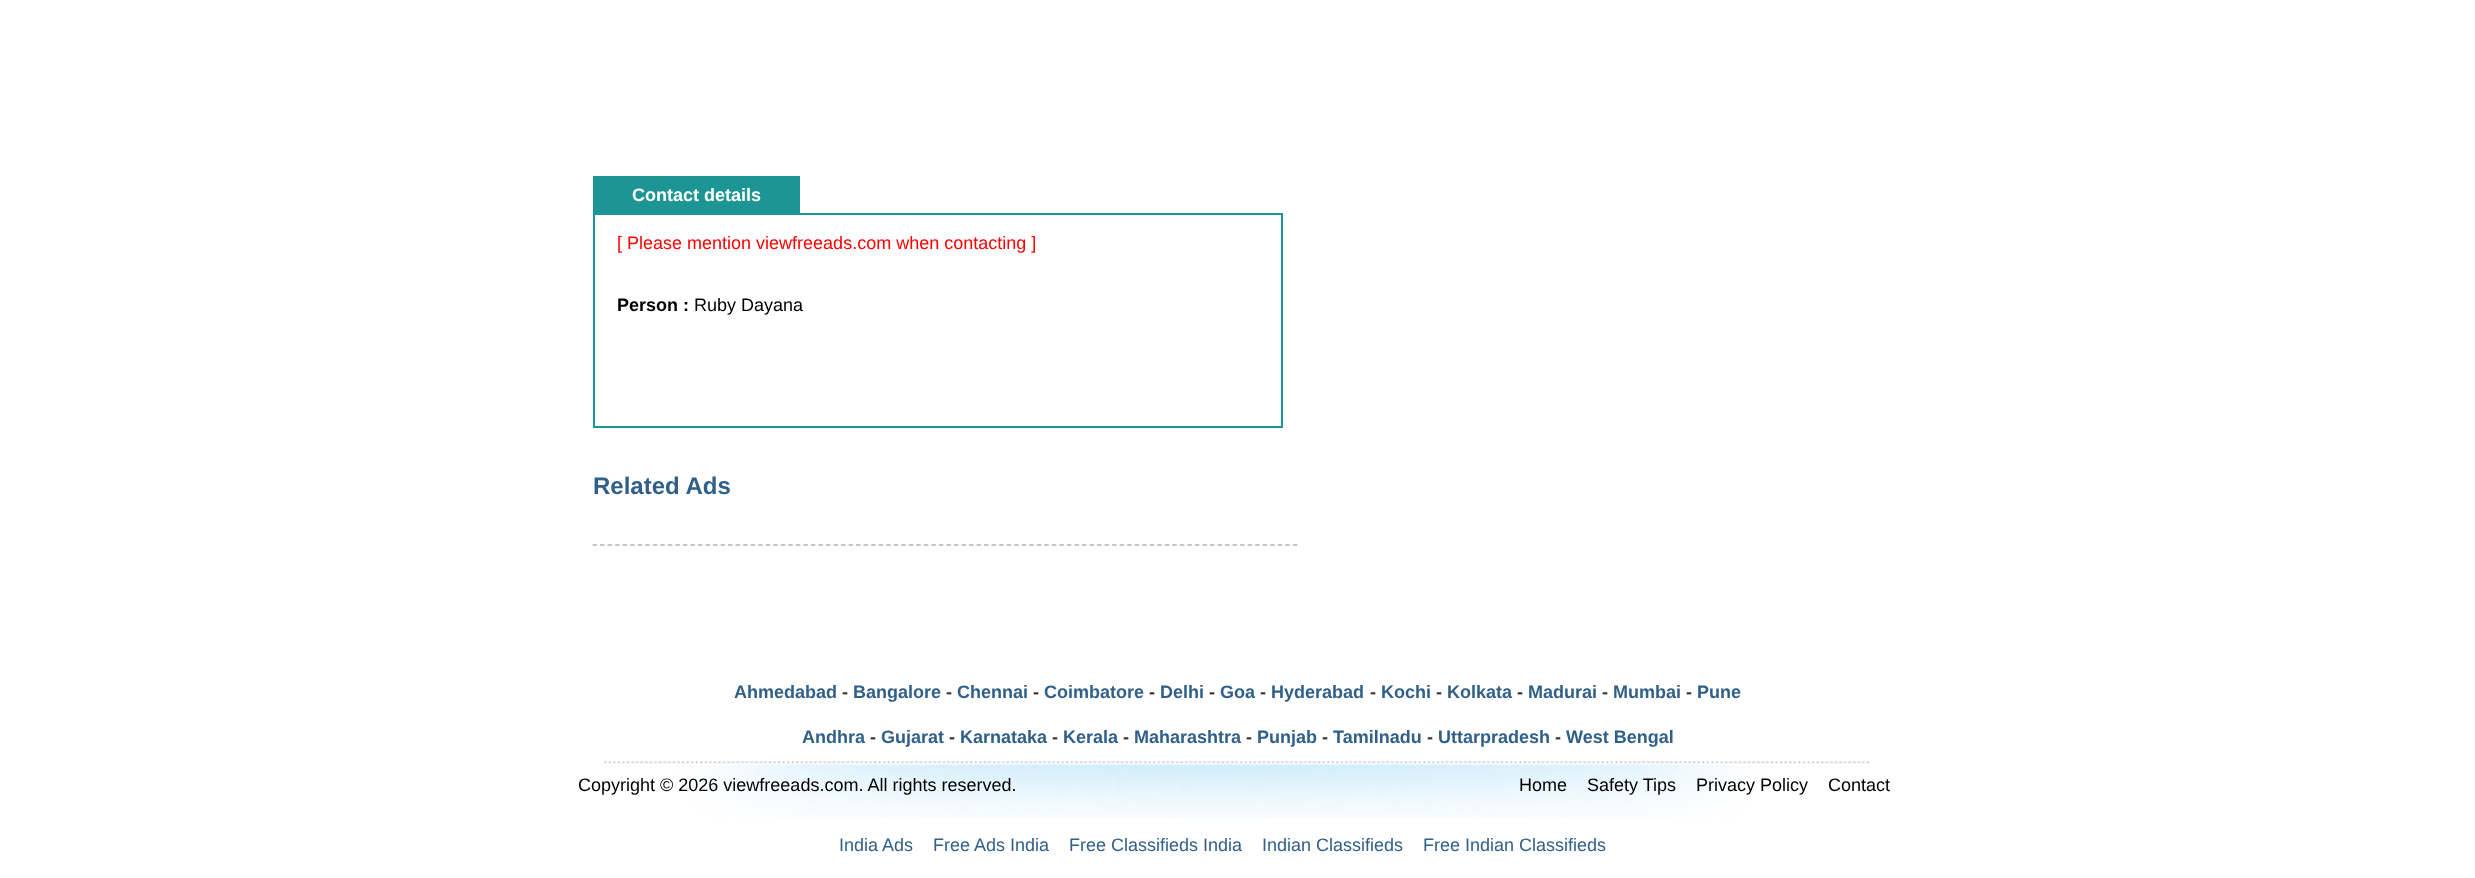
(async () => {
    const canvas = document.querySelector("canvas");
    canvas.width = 2475;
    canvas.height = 878;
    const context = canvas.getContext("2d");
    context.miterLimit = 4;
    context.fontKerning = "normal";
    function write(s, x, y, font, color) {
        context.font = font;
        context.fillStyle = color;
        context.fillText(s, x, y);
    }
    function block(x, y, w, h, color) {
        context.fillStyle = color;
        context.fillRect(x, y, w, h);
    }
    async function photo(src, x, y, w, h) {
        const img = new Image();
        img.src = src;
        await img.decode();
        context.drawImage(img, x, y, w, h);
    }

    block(0, 0, 2475, 878, "rgb(255, 255, 255)");
    block(593, 176, 207, 37, "rgb(30, 149, 149)");
    write("Contact details", 632, 201, "bold 18px Liberation Sans", "rgb(255, 255, 255)");
    context.strokeStyle = "rgb(30, 149, 149)";
    context.lineWidth = 2;
    context.strokeRect(594, 214, 688, 213);
    write("[ Please mention viewfreeads.com when contacting ]", 617, 249, "18px Liberation Sans", "rgb(255, 0, 0)");
    write("Person :", 617, 311, "bold 18px Liberation Sans", "rgb(0, 0, 0)");
    write("Ruby Dayana", 694, 311, "18px Liberation Sans", "rgb(0, 0, 0)");
    write("Related Ads", 593, 494, "bold 24px Liberation Sans", "rgb(48, 95, 137)");
    context.beginPath();
    context.moveTo(592.5, 545);
    context.lineTo(1297.5, 545);
    context.strokeStyle = "rgb(178, 178, 178)";
    context.lineWidth = 1.5;
    context.setLineDash([4.5, 3.03]);
    context.stroke();
    write("Ahmedabad", 734, 698, "bold 18px Liberation Sans", "rgb(48, 95, 137)");
    write("-", 842, 698, "bold 18px Liberation Sans", "rgb(51, 51, 51)");
    write("Bangalore", 853, 698, "bold 18px Liberation Sans", "rgb(48, 95, 137)");
    write("-", 946, 698, "bold 18px Liberation Sans", "rgb(51, 51, 51)");
    write("Chennai", 957, 698, "bold 18px Liberation Sans", "rgb(48, 95, 137)");
    write("-", 1033, 698, "bold 18px Liberation Sans", "rgb(51, 51, 51)");
    write("Coimbatore", 1044, 698, "bold 18px Liberation Sans", "rgb(48, 95, 137)");
    write("-", 1149, 698, "bold 18px Liberation Sans", "rgb(51, 51, 51)");
    write("Delhi", 1160, 698, "bold 18px Liberation Sans", "rgb(48, 95, 137)");
    write("-", 1209, 698, "bold 18px Liberation Sans", "rgb(51, 51, 51)");
    write("Goa", 1220, 698, "bold 18px Liberation Sans", "rgb(48, 95, 137)");
    write("-", 1260, 698, "bold 18px Liberation Sans", "rgb(51, 51, 51)");
    write("Hyderabad", 1271, 698, "bold 18px Liberation Sans", "rgb(48, 95, 137)");
    write("-", 1370, 698, "bold 18px Liberation Sans", "rgb(51, 51, 51)");
    write("Kochi", 1381, 698, "bold 18px Liberation Sans", "rgb(48, 95, 137)");
    write("-", 1436, 698, "bold 18px Liberation Sans", "rgb(51, 51, 51)");
    write("Kolkata", 1447, 698, "bold 18px Liberation Sans", "rgb(48, 95, 137)");
    write("-", 1517, 698, "bold 18px Liberation Sans", "rgb(51, 51, 51)");
    write("Madurai", 1528, 698, "bold 18px Liberation Sans", "rgb(48, 95, 137)");
    write("-", 1602, 698, "bold 18px Liberation Sans", "rgb(51, 51, 51)");
    write("Mumbai", 1613, 698, "bold 18px Liberation Sans", "rgb(48, 95, 137)");
    write("-", 1686, 698, "bold 18px Liberation Sans", "rgb(51, 51, 51)");
    write("Pune", 1697, 698, "bold 18px Liberation Sans", "rgb(48, 95, 137)");
    write("Andhra", 802, 743, "bold 18px Liberation Sans", "rgb(48, 95, 137)");
    write("-", 870, 743, "bold 18px Liberation Sans", "rgb(51, 51, 51)");
    write("Gujarat", 881, 743, "bold 18px Liberation Sans", "rgb(48, 95, 137)");
    write("-", 949, 743, "bold 18px Liberation Sans", "rgb(51, 51, 51)");
    write("Karnataka", 960, 743, "bold 18px Liberation Sans", "rgb(48, 95, 137)");
    write("-", 1052, 743, "bold 18px Liberation Sans", "rgb(51, 51, 51)");
    write("Kerala", 1063, 743, "bold 18px Liberation Sans", "rgb(48, 95, 137)");
    write("-", 1123, 743, "bold 18px Liberation Sans", "rgb(51, 51, 51)");
    write("Maharashtra", 1134, 743, "bold 18px Liberation Sans", "rgb(48, 95, 137)");
    write("-", 1246, 743, "bold 18px Liberation Sans", "rgb(51, 51, 51)");
    write("Punjab", 1257, 743, "bold 18px Liberation Sans", "rgb(48, 95, 137)");
    write("-", 1322, 743, "bold 18px Liberation Sans", "rgb(51, 51, 51)");
    write("Tamilnadu", 1333, 743, "bold 18px Liberation Sans", "rgb(48, 95, 137)");
    write("-", 1427, 743, "bold 18px Liberation Sans", "rgb(51, 51, 51)");
    write("Uttarpradesh", 1438, 743, "bold 18px Liberation Sans", "rgb(48, 95, 137)");
    write("-", 1555, 743, "bold 18px Liberation Sans", "rgb(51, 51, 51)");
    write("West Bengal", 1566, 743, "bold 18px Liberation Sans", "rgb(48, 95, 137)");
    await photo("media/1.png", 604, 761, 1266, 58);
    write("Copyright © 2026 viewfreeads.com. All rights reserved.", 578, 791, "18px Liberation Sans", "rgb(0, 0, 0)");
    write("Home", 1519, 791, "18px Liberation Sans", "rgb(0, 0, 0)");
    write("Safety Tips", 1587, 791, "18px Liberation Sans", "rgb(0, 0, 0)");
    write("Privacy Policy", 1696, 791, "18px Liberation Sans", "rgb(0, 0, 0)");
    write("Contact", 1828, 791, "18px Liberation Sans", "rgb(0, 0, 0)");
    write("India Ads", 839, 851, "18px Liberation Sans", "rgb(48, 95, 137)");
    write("Free Ads India", 933, 851, "18px Liberation Sans", "rgb(48, 95, 137)");
    write("Free Classifieds India", 1069, 851, "18px Liberation Sans", "rgb(48, 95, 137)");
    write("Indian Classifieds", 1262, 851, "18px Liberation Sans", "rgb(48, 95, 137)");
    write("Free Indian Classifieds", 1423, 851, "18px Liberation Sans", "rgb(48, 95, 137)");
})();
